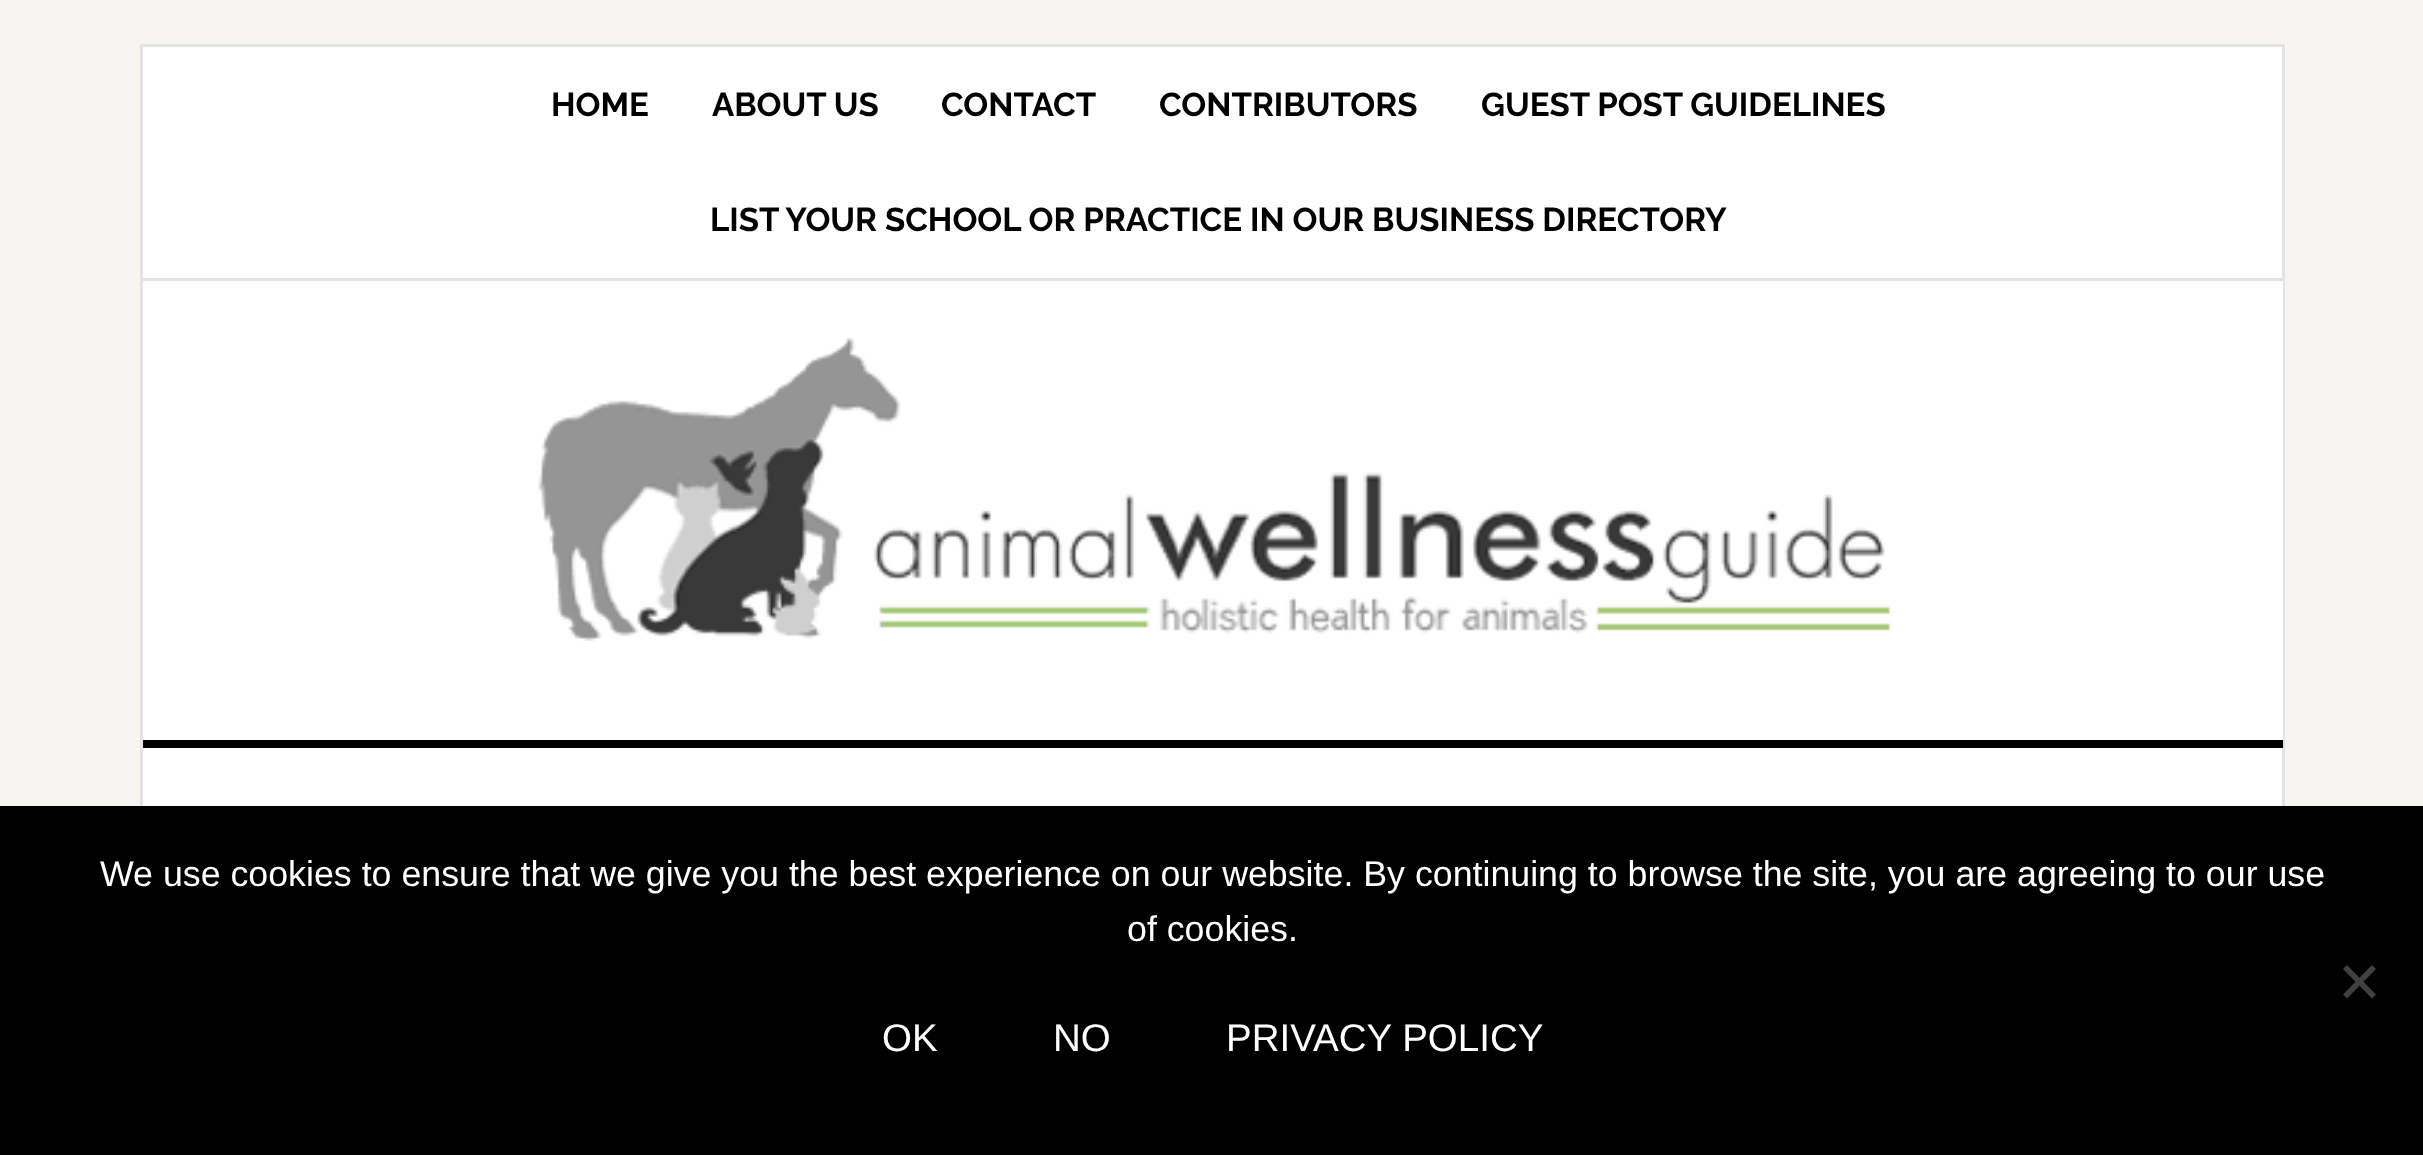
(async () => {
    const canvas = document.querySelector("canvas");
    canvas.width = 2423;
    canvas.height = 1155;
    const context = canvas.getContext("2d");
    context.miterLimit = 4;
    context.fontKerning = "normal";
    function write(s, x, y, font, color) {
        context.font = font;
        context.fillStyle = color;
        context.fillText(s, x, y);
    }
    function block(x, y, w, h, color) {
        context.fillStyle = color;
        context.fillRect(x, y, w, h);
    }
    async function photo(src, x, y, w, h) {
        const img = new Image();
        img.src = src;
        await img.decode();
        context.drawImage(img, x, y, w, h);
    }

    block(0, 0, 2423, 1155, "rgb(246, 245, 242)");
    block(143, 47, 2139, 759, "rgb(255, 255, 255)");
    context.strokeStyle = "rgb(227, 227, 227)";
    context.lineWidth = 3;
    context.strokeRect(141.5, 45.5, 2142, 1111);
    block(143, 278, 2140, 3, "rgb(227, 227, 227)");
    write("HOME", 551, 116, "bold 33px Raleway", "rgb(0, 0, 0)");
    write("ABOUT US", 712, 116, "bold 33px Raleway", "rgb(0, 0, 0)");
    write("CONTACT", 941, 116, "bold 33px Raleway", "rgb(0, 0, 0)");
    write("CONTRIBUTORS", 1159, 116, "bold 33px Raleway", "rgb(0, 0, 0)");
    write("GUEST POST GUIDELINES", 1481, 116, "bold 33px Raleway", "rgb(0, 0, 0)");
    write("LIST YOUR SCHOOL OR PRACTICE IN OUR BUSINESS DIRECTORY", 710, 231, "bold 33px Raleway", "rgb(0, 0, 0)");
    block(2282, 281, 1, 459, "rgb(255, 255, 255)");
    await photo("media/1.png", 538, 337, 1353, 304);
    block(143, 740, 2140, 8, "rgb(0, 0, 0)");
    block(0, 806, 2423, 349, "rgb(0, 0, 0)");
    write("We use cookies to ensure that we give you the best experience on our website. By continuing to browse the site, you are agreeing to our use", 100, 886, "35.75px Liberation Sans", "rgb(255, 255, 255)");
    write("of cookies.", 1127, 941, "35.75px Liberation Sans", "rgb(255, 255, 255)");
    context.fillStyle = "rgb(64, 64, 64)";
    context.beginPath();
    context.moveTo(2372, 965);
    context.lineTo(2376, 969);
    context.lineTo(2347, 998.5);
    context.lineTo(2343, 994.5);
    context.closePath();
    context.fill();
    context.beginPath();
    context.moveTo(2343, 969);
    context.lineTo(2347, 965);
    context.lineTo(2376, 994.5);
    context.lineTo(2372, 998.5);
    context.closePath();
    context.fill();
    write("OK", 882, 1051, "38.5px Liberation Sans", "rgb(255, 255, 255)");
    write("NO", 1053, 1051, "38.5px Liberation Sans", "rgb(255, 255, 255)");
    write("PRIVACY POLICY", 1226, 1051, "38.5px Liberation Sans", "rgb(255, 255, 255)");
})();
